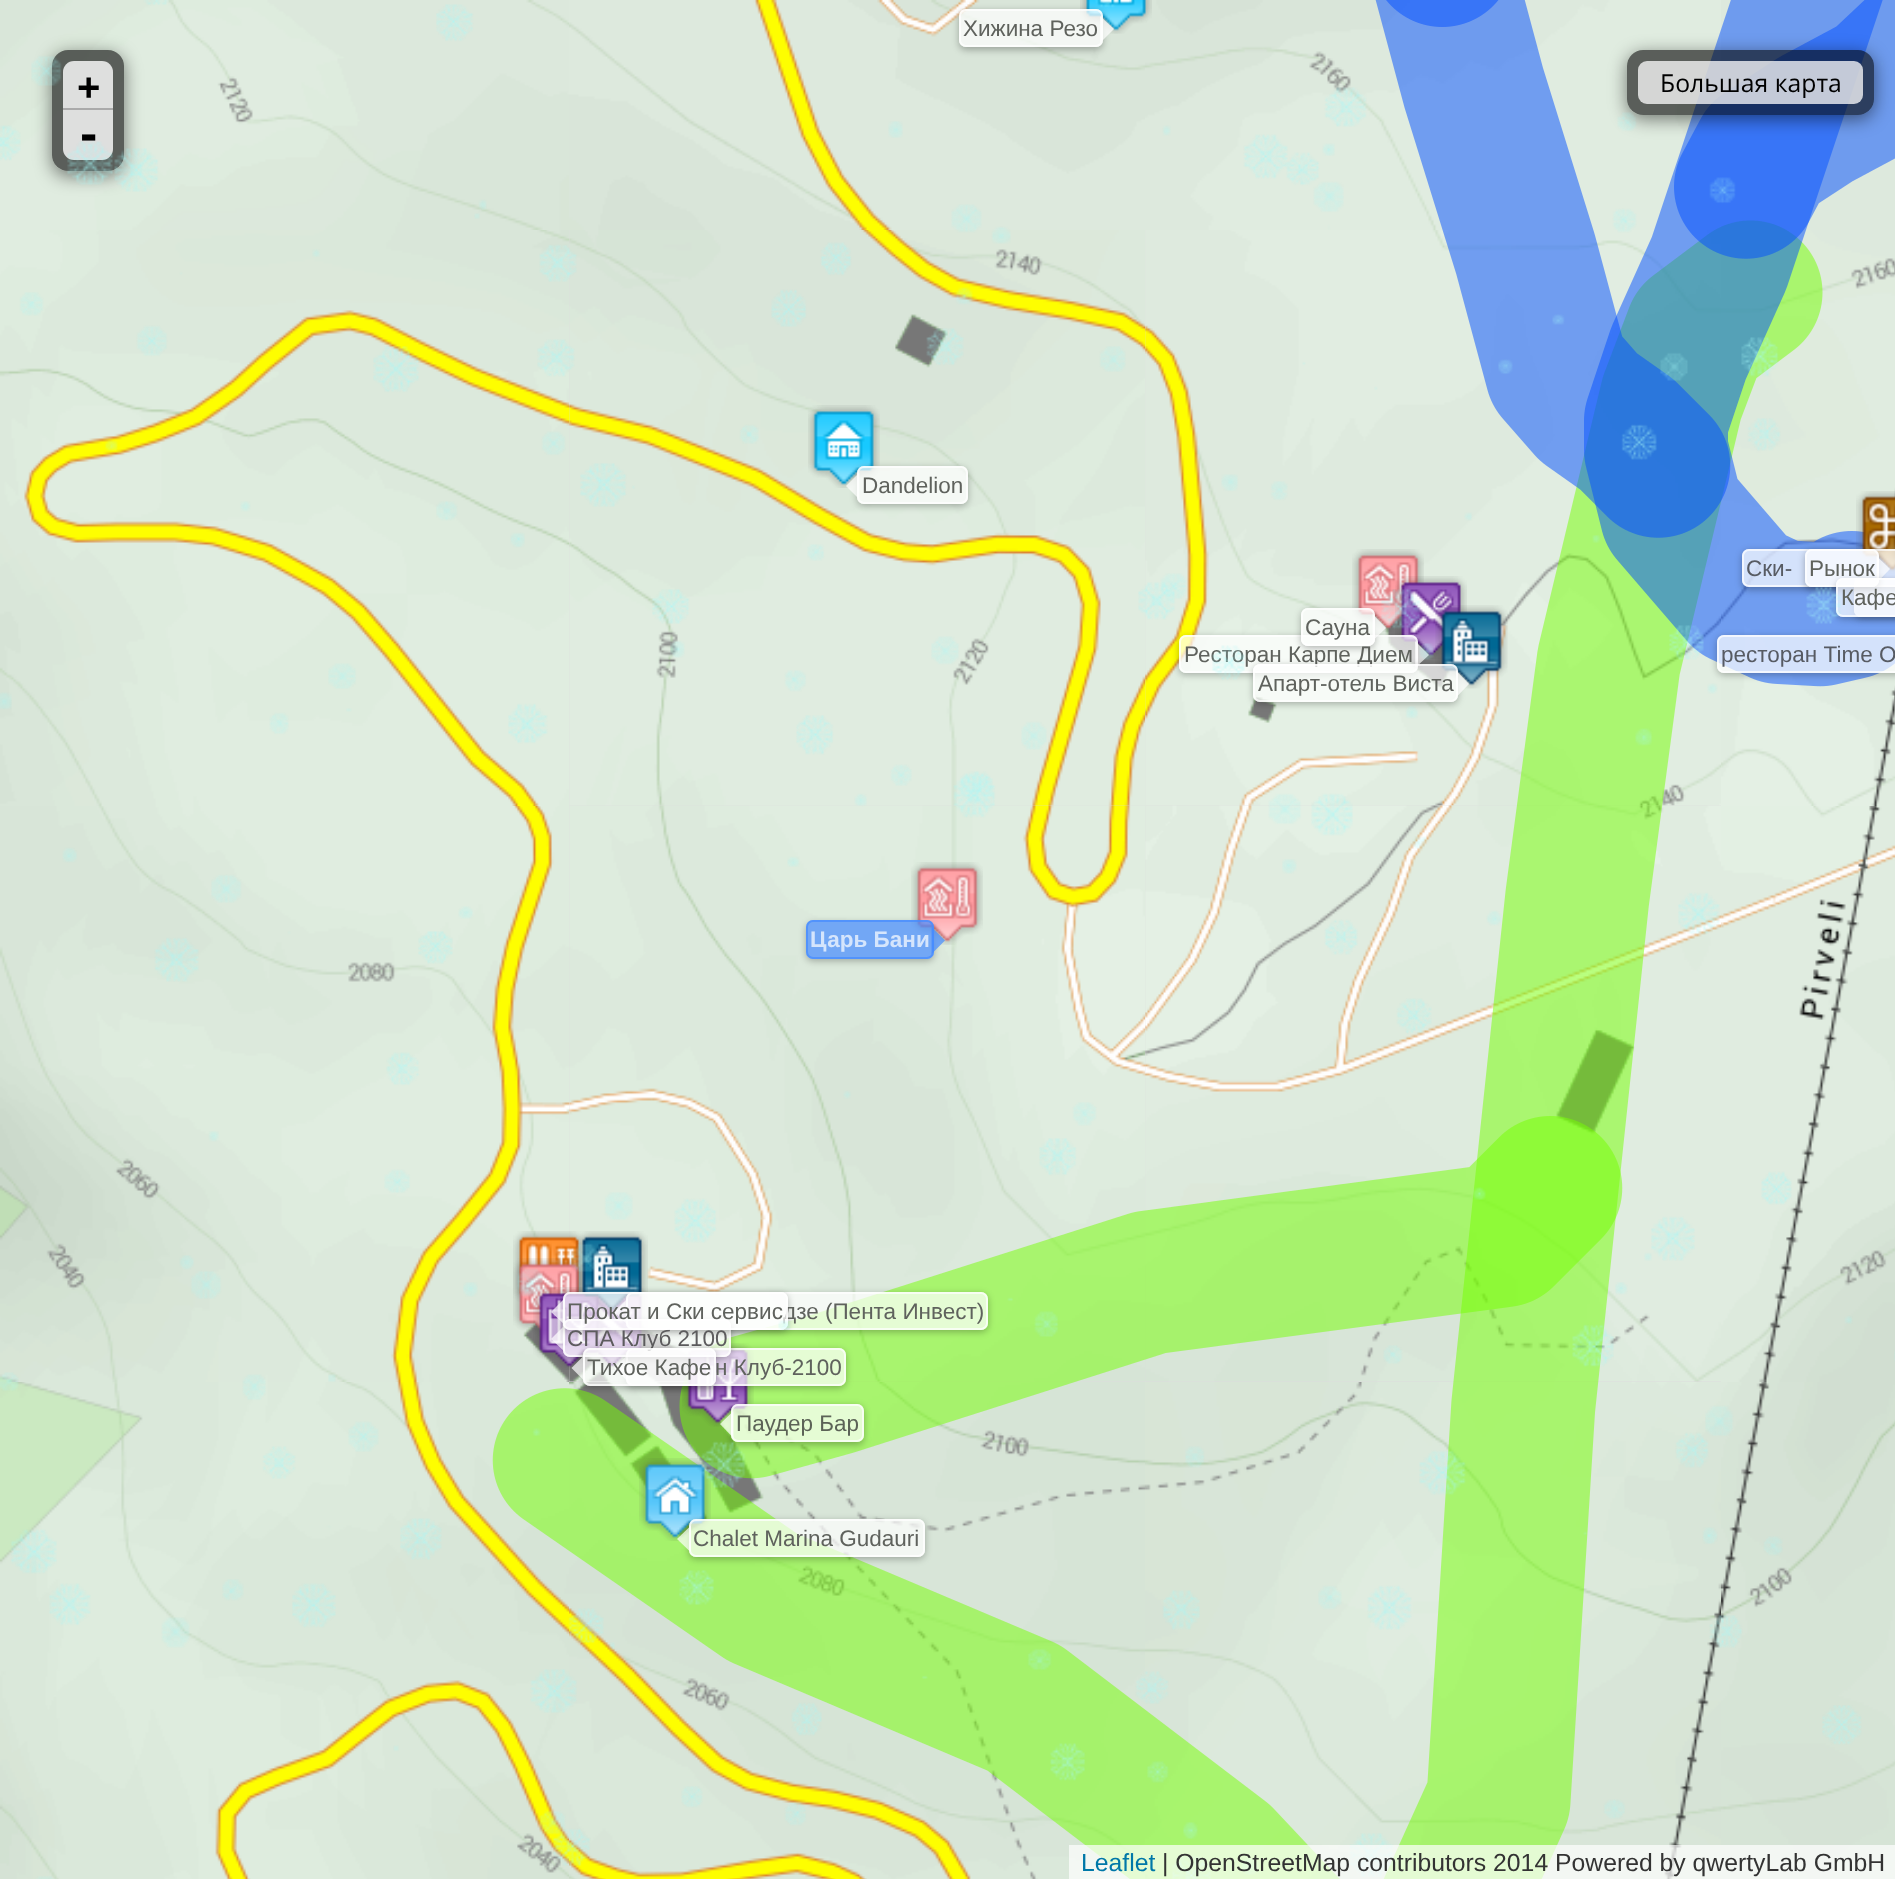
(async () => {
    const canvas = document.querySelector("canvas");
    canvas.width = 1895;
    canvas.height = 1879;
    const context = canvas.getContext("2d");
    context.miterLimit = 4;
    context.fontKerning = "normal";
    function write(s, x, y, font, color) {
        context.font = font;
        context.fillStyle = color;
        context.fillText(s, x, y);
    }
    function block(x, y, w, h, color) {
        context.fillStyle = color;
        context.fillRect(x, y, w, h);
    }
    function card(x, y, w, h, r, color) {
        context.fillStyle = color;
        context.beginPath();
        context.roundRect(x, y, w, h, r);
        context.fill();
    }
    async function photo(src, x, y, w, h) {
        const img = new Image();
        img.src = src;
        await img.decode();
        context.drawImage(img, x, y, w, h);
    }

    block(0, 0, 1895, 1879, "rgb(221, 221, 221)");
    await photo("media/2.png", 0, 0, 569, 230);
    await photo("media/3.png", 569, 0, 576, 230);
    await photo("media/4.png", 1145, 0, 576, 230);
    block(1721, 0, 174, 230, "rgb(221, 233, 221)");
    await photo("media/5.png", 0, 230, 569, 576);
    await photo("media/6.png", 569, 230, 577, 576);
    await photo("media/7.png", 1145, 230, 576, 576);
    await photo("media/8.png", 1721, 230, 174, 576);
    await photo("media/9.png", 0, 806, 569, 576);
    await photo("media/10.png", 569, 805, 577, 577);
    await photo("media/11.png", 1145, 805, 576, 577);
    await photo("media/12.png", 1721, 806, 174, 576);
    await photo("media/13.png", 0, 1382, 569, 497);
    await photo("media/14.png", 569, 1382, 576, 497);
    await photo("media/15.png", 1145, 1382, 576, 497);
    await photo("media/16.png", 1721, 1382, 174, 497);
    await photo("media/17.png", 492, 0, 1403, 1879);
    await photo("media/18.png", 1080, 0, 72, 34);
    await photo("media/19.png", 808, 405, 72, 83);
    await photo("media/20.png", 1856, 491, 39, 83);
    await photo("media/21.png", 1352, 549, 72, 83);
    await photo("media/22.png", 1395, 576, 72, 83);
    await photo("media/23.png", 1435, 605, 73, 84);
    await photo("media/24.png", 911, 862, 72, 83);
    await photo("media/25.png", 513, 1231, 72, 71);
    await photo("media/27.png", 513, 1258, 72, 82);
    await photo("media/29.png", 577, 1288, 71, 82);
    await photo("media/28.png", 533, 1287, 72, 83);
    await photo("media/26.png", 576, 1231, 72, 83);
    await photo("media/30.png", 682, 1343, 72, 84);
    await photo("media/31.png", 639, 1458, 72, 83);
    context.save();
    context.beginPath();
    context.moveTo(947, 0);
    context.lineTo(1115, 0);
    context.lineTo(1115, 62);
    context.lineTo(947, 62);
    context.closePath();
    context.moveTo(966, 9);
    context.lineTo(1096, 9);
    context.bezierCurveTo(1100, 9, 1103, 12, 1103, 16);
    context.lineTo(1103, 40);
    context.bezierCurveTo(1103, 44, 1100, 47, 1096, 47);
    context.lineTo(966, 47);
    context.bezierCurveTo(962, 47, 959, 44, 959, 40);
    context.lineTo(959, 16);
    context.bezierCurveTo(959, 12, 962, 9, 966, 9);
    context.closePath();
    context.clip("evenodd");
    context.fillStyle = "rgba(0, 0, 0, 0.28)";
    context.filter = "blur(3.5px)";
    context.beginPath();
    context.roundRect(959, 11, 144, 39, 7);
    context.fill();
    context.filter = "none";
    context.restore();
    card(959, 9, 144, 38, 7, "rgba(255, 255, 255, 0.7)");
    context.beginPath();
    context.roundRect(960, 10, 142, 36, 6);
    context.strokeStyle = "rgba(255, 255, 255, 0.7)";
    context.lineWidth = 2;
    context.stroke();
    write("Хижина Резо", 963, 36, "22.5px Liberation Sans", "rgb(95, 98, 93)");
    context.fillStyle = "rgba(255, 255, 255, 0.7)";
    context.beginPath();
    context.moveTo(1100, 43);
    context.lineTo(1100, 16);
    context.lineTo(1114, 29);
    context.closePath();
    context.fill();
    context.save();
    context.beginPath();
    context.moveTo(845, 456);
    context.lineTo(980, 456);
    context.lineTo(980, 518);
    context.lineTo(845, 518);
    context.closePath();
    context.moveTo(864, 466);
    context.lineTo(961, 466);
    context.bezierCurveTo(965, 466, 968, 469, 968, 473);
    context.lineTo(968, 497);
    context.bezierCurveTo(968, 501, 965, 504, 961, 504);
    context.lineTo(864, 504);
    context.bezierCurveTo(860, 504, 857, 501, 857, 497);
    context.lineTo(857, 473);
    context.bezierCurveTo(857, 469, 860, 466, 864, 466);
    context.closePath();
    context.clip("evenodd");
    context.fillStyle = "rgba(0, 0, 0, 0.28)";
    context.filter = "blur(3.5px)";
    context.beginPath();
    context.roundRect(857, 468, 111, 38, 7);
    context.fill();
    context.filter = "none";
    context.restore();
    card(857, 466, 111, 38, 7, "rgba(255, 255, 255, 0.7)");
    context.beginPath();
    context.roundRect(858, 467, 109, 36, 6);
    context.stroke();
    context.beginPath();
    context.moveTo(859.5, 472.5);
    context.lineTo(859.5, 499.5);
    context.lineTo(846, 486);
    context.closePath();
    context.fill();
    write("Dandelion", 862, 493, "22.5px Liberation Sans", "rgb(95, 98, 93)");
    context.fillStyle = "rgba(33, 47, 72, 0.4)";
    context.filter = "blur(3.5px)";
    context.beginPath();
    context.roundRect(1854, 581, 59, 38, 7);
    context.fill();
    context.filter = "none";
    context.fillStyle = "rgb(212, 225, 250)";
    context.beginPath();
    context.moveTo(1861, 578);
    context.lineTo(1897, 578);
    context.lineTo(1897, 617);
    context.lineTo(1861, 617);
    context.bezierCurveTo(1857, 617, 1854, 614, 1854, 610);
    context.lineTo(1854, 585);
    context.bezierCurveTo(1854, 581, 1857, 578, 1861, 578);
    context.closePath();
    context.fill();
    context.beginPath();
    context.roundRect(1855, 579, 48, 37, 6);
    context.strokeStyle = "rgb(212, 225, 250)";
    context.stroke();
    context.save();
    context.beginPath();
    context.moveTo(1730, 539);
    context.lineTo(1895, 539);
    context.lineTo(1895, 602);
    context.lineTo(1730, 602);
    context.closePath();
    context.moveTo(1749, 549);
    context.lineTo(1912, 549);
    context.bezierCurveTo(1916, 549, 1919, 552, 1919, 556);
    context.lineTo(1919, 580);
    context.bezierCurveTo(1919, 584, 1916, 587, 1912, 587);
    context.lineTo(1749, 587);
    context.bezierCurveTo(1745, 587, 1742, 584, 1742, 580);
    context.lineTo(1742, 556);
    context.bezierCurveTo(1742, 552, 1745, 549, 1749, 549);
    context.closePath();
    context.clip("evenodd");
    context.fillStyle = "rgba(0, 0, 0, 0.28)";
    context.filter = "blur(3.5px)";
    context.beginPath();
    context.roundRect(1742, 551, 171, 39, 7);
    context.fill();
    context.filter = "none";
    context.restore();
    context.fillStyle = "rgba(0, 0, 0, 0.28)";
    context.filter = "blur(3.5px)";
    context.beginPath();
    context.roundRect(1895, 524, 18, 39, 7);
    context.fill();
    context.filter = "none";
    context.fillStyle = "rgba(255, 255, 255, 0.7)";
    context.beginPath();
    context.moveTo(1749, 549);
    context.lineTo(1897, 549);
    context.lineTo(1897, 587);
    context.lineTo(1749, 587);
    context.bezierCurveTo(1745, 587, 1742, 584, 1742, 580);
    context.lineTo(1742, 556);
    context.bezierCurveTo(1742, 552, 1745, 549, 1749, 549);
    context.closePath();
    context.fill();
    context.beginPath();
    context.roundRect(1743, 550, 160, 36, 6);
    context.strokeStyle = "rgba(255, 255, 255, 0.7)";
    context.stroke();
    write("Ски-", 1746, 576, "22.5px Liberation Sans", "rgb(87, 91, 99)");
    context.save();
    context.beginPath();
    context.moveTo(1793, 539);
    context.lineTo(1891, 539);
    context.lineTo(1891, 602);
    context.lineTo(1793, 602);
    context.closePath();
    context.moveTo(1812, 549);
    context.lineTo(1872, 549);
    context.bezierCurveTo(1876, 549, 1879, 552, 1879, 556);
    context.lineTo(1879, 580);
    context.bezierCurveTo(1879, 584, 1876, 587, 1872, 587);
    context.lineTo(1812, 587);
    context.bezierCurveTo(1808, 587, 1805, 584, 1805, 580);
    context.lineTo(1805, 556);
    context.bezierCurveTo(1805, 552, 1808, 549, 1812, 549);
    context.closePath();
    context.clip("evenodd");
    context.fillStyle = "rgba(0, 0, 0, 0.28)";
    context.filter = "blur(3.5px)";
    context.beginPath();
    context.roundRect(1805, 551, 74, 39, 7);
    context.fill();
    context.filter = "none";
    context.restore();
    card(1805, 549, 74, 38, 7, "rgba(255, 255, 255, 0.7)");
    context.beginPath();
    context.roundRect(1806, 550, 72, 36, 6);
    context.stroke();
    write("Рынок", 1809, 576, "22.5px Liberation Sans", "rgb(95, 98, 93)");
    context.fillStyle = "rgba(255, 255, 255, 0.7)";
    context.beginPath();
    context.moveTo(1876.5, 583);
    context.lineTo(1876.5, 556);
    context.lineTo(1890, 569);
    context.closePath();
    context.fill();
    context.save();
    context.beginPath();
    context.moveTo(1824, 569);
    context.lineTo(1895, 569);
    context.lineTo(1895, 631);
    context.lineTo(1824, 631);
    context.closePath();
    context.moveTo(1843, 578);
    context.lineTo(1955, 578);
    context.bezierCurveTo(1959, 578, 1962, 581, 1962, 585);
    context.lineTo(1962, 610);
    context.bezierCurveTo(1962, 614, 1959, 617, 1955, 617);
    context.lineTo(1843, 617);
    context.bezierCurveTo(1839, 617, 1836, 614, 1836, 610);
    context.lineTo(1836, 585);
    context.bezierCurveTo(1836, 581, 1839, 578, 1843, 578);
    context.closePath();
    context.clip("evenodd");
    context.fillStyle = "rgba(0, 0, 0, 0.28)";
    context.filter = "blur(3.5px)";
    context.beginPath();
    context.roundRect(1836, 581, 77, 38, 7);
    context.fill();
    context.filter = "none";
    context.restore();
    context.beginPath();
    context.moveTo(1843, 578);
    context.lineTo(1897, 578);
    context.lineTo(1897, 617);
    context.lineTo(1843, 617);
    context.bezierCurveTo(1839, 617, 1836, 614, 1836, 610);
    context.lineTo(1836, 585);
    context.bezierCurveTo(1836, 581, 1839, 578, 1843, 578);
    context.closePath();
    context.fill();
    context.beginPath();
    context.roundRect(1837, 579, 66, 37, 6);
    context.stroke();
    write("Кафе", 1841, 605, "22.5px Liberation Sans", "rgb(95, 98, 93)");
    context.save();
    context.beginPath();
    context.moveTo(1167, 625);
    context.lineTo(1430, 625);
    context.lineTo(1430, 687);
    context.lineTo(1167, 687);
    context.closePath();
    context.moveTo(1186, 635);
    context.lineTo(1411, 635);
    context.bezierCurveTo(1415, 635, 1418, 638, 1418, 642);
    context.lineTo(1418, 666);
    context.bezierCurveTo(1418, 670, 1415, 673, 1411, 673);
    context.lineTo(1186, 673);
    context.bezierCurveTo(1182, 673, 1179, 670, 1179, 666);
    context.lineTo(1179, 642);
    context.bezierCurveTo(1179, 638, 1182, 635, 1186, 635);
    context.closePath();
    context.clip("evenodd");
    context.fillStyle = "rgba(0, 0, 0, 0.28)";
    context.filter = "blur(3.5px)";
    context.beginPath();
    context.roundRect(1179, 637, 239, 38, 7);
    context.fill();
    context.filter = "none";
    context.restore();
    card(1179, 635, 239, 38, 7, "rgba(255, 255, 255, 0.7)");
    context.beginPath();
    context.roundRect(1180, 636, 237, 36, 6);
    context.stroke();
    context.save();
    context.beginPath();
    context.moveTo(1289, 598);
    context.lineTo(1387, 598);
    context.lineTo(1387, 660);
    context.lineTo(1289, 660);
    context.closePath();
    context.moveTo(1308, 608);
    context.lineTo(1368, 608);
    context.bezierCurveTo(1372, 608, 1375, 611, 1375, 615);
    context.lineTo(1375, 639);
    context.bezierCurveTo(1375, 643, 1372, 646, 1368, 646);
    context.lineTo(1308, 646);
    context.bezierCurveTo(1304, 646, 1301, 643, 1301, 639);
    context.lineTo(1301, 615);
    context.bezierCurveTo(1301, 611, 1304, 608, 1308, 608);
    context.closePath();
    context.clip("evenodd");
    context.fillStyle = "rgba(0, 0, 0, 0.28)";
    context.filter = "blur(3.5px)";
    context.beginPath();
    context.roundRect(1301, 610, 74, 38, 7);
    context.fill();
    context.filter = "none";
    context.restore();
    card(1301, 608, 74, 38, 7, "rgba(255, 255, 255, 0.7)");
    context.beginPath();
    context.roundRect(1302, 609, 72, 36, 6);
    context.stroke();
    write("Сауна", 1305, 635, "22.5px Liberation Sans", "rgb(95, 98, 93)");
    context.fillStyle = "rgba(255, 255, 255, 0.7)";
    context.beginPath();
    context.moveTo(1372.5, 641);
    context.lineTo(1372.5, 614);
    context.lineTo(1386, 628);
    context.closePath();
    context.fill();
    write("Ресторан Карпе Дием", 1184, 662, "22.5px Liberation Sans", "rgb(95, 98, 93)");
    context.fillStyle = "rgba(255, 255, 255, 0.7)";
    context.beginPath();
    context.moveTo(1415, 668);
    context.lineTo(1415, 641);
    context.lineTo(1429, 655);
    context.closePath();
    context.fill();
    context.save();
    context.beginPath();
    context.moveTo(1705, 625);
    context.lineTo(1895, 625);
    context.lineTo(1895, 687);
    context.lineTo(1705, 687);
    context.closePath();
    context.moveTo(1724, 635);
    context.lineTo(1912, 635);
    context.bezierCurveTo(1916, 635, 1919, 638, 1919, 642);
    context.lineTo(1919, 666);
    context.bezierCurveTo(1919, 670, 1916, 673, 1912, 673);
    context.lineTo(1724, 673);
    context.bezierCurveTo(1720, 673, 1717, 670, 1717, 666);
    context.lineTo(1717, 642);
    context.bezierCurveTo(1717, 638, 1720, 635, 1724, 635);
    context.closePath();
    context.clip("evenodd");
    context.fillStyle = "rgba(0, 0, 0, 0.28)";
    context.filter = "blur(3.5px)";
    context.beginPath();
    context.roundRect(1717, 637, 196, 38, 7);
    context.fill();
    context.filter = "none";
    context.restore();
    context.beginPath();
    context.moveTo(1724, 635);
    context.lineTo(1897, 635);
    context.lineTo(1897, 673);
    context.lineTo(1724, 673);
    context.bezierCurveTo(1720, 673, 1717, 670, 1717, 666);
    context.lineTo(1717, 642);
    context.bezierCurveTo(1717, 638, 1720, 635, 1724, 635);
    context.closePath();
    context.fill();
    context.beginPath();
    context.roundRect(1718, 636, 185, 36, 6);
    context.stroke();
    write("ресторан Time O", 1721, 662, "22.5px Liberation Sans", "rgb(87, 91, 99)");
    context.save();
    context.beginPath();
    context.moveTo(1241, 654);
    context.lineTo(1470, 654);
    context.lineTo(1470, 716);
    context.lineTo(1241, 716);
    context.closePath();
    context.moveTo(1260, 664);
    context.lineTo(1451, 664);
    context.bezierCurveTo(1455, 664, 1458, 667, 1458, 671);
    context.lineTo(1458, 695);
    context.bezierCurveTo(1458, 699, 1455, 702, 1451, 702);
    context.lineTo(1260, 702);
    context.bezierCurveTo(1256, 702, 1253, 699, 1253, 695);
    context.lineTo(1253, 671);
    context.bezierCurveTo(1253, 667, 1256, 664, 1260, 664);
    context.closePath();
    context.clip("evenodd");
    context.fillStyle = "rgba(0, 0, 0, 0.28)";
    context.filter = "blur(3.5px)";
    context.beginPath();
    context.roundRect(1253, 666, 205, 38, 7);
    context.fill();
    context.filter = "none";
    context.restore();
    card(1253, 664, 205, 38, 7, "rgba(255, 255, 255, 0.7)");
    context.beginPath();
    context.roundRect(1254, 665, 203, 36, 6);
    context.stroke();
    write("Апарт-отель Виста", 1258, 691, "22.5px Liberation Sans", "rgb(95, 98, 93)");
    context.fillStyle = "rgba(255, 255, 255, 0.7)";
    context.beginPath();
    context.moveTo(1456, 697.5);
    context.lineTo(1456, 670.5);
    context.lineTo(1469, 684);
    context.closePath();
    context.fill();
    context.save();
    context.beginPath();
    context.moveTo(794, 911);
    context.lineTo(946, 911);
    context.lineTo(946, 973);
    context.lineTo(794, 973);
    context.closePath();
    context.moveTo(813, 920);
    context.lineTo(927, 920);
    context.bezierCurveTo(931, 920, 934, 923, 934, 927);
    context.lineTo(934, 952);
    context.bezierCurveTo(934, 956, 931, 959, 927, 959);
    context.lineTo(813, 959);
    context.bezierCurveTo(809, 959, 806, 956, 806, 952);
    context.lineTo(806, 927);
    context.bezierCurveTo(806, 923, 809, 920, 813, 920);
    context.closePath();
    context.clip("evenodd");
    context.fillStyle = "rgba(0, 0, 0, 0.28)";
    context.filter = "blur(3.5px)";
    context.beginPath();
    context.roundRect(806, 923, 128, 38, 7);
    context.fill();
    context.filter = "none";
    context.restore();
    card(806, 920, 128, 39, 7, "rgba(68, 138, 255, 0.7)");
    context.beginPath();
    context.roundRect(807, 921, 126, 37, 6);
    context.strokeStyle = "rgba(68, 138, 255, 0.7)";
    context.stroke();
    write("Царь Бани", 810, 947, "bold 22.5px Liberation Sans", "rgb(213, 229, 252)");
    context.fillStyle = "rgba(68, 138, 255, 0.7)";
    context.beginPath();
    context.moveTo(931.5, 954);
    context.lineTo(931.5, 927);
    context.lineTo(945, 940.5);
    context.closePath();
    context.fill();
    context.save();
    context.beginPath();
    context.moveTo(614, 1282);
    context.lineTo(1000, 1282);
    context.lineTo(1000, 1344);
    context.lineTo(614, 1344);
    context.closePath();
    context.moveTo(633, 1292);
    context.lineTo(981, 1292);
    context.bezierCurveTo(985, 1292, 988, 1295, 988, 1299);
    context.lineTo(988, 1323);
    context.bezierCurveTo(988, 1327, 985, 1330, 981, 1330);
    context.lineTo(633, 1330);
    context.bezierCurveTo(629, 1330, 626, 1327, 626, 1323);
    context.lineTo(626, 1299);
    context.bezierCurveTo(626, 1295, 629, 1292, 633, 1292);
    context.closePath();
    context.clip("evenodd");
    context.fillStyle = "rgba(0, 0, 0, 0.28)";
    context.filter = "blur(3.5px)";
    context.beginPath();
    context.roundRect(626, 1294, 362, 38, 7);
    context.fill();
    context.filter = "none";
    context.restore();
    card(626, 1292, 362, 38, 7, "rgba(255, 255, 255, 0.7)");
    context.beginPath();
    context.roundRect(627, 1293, 360, 36, 6);
    context.strokeStyle = "rgba(255, 255, 255, 0.7)";
    context.stroke();
    context.beginPath();
    context.moveTo(628, 1298);
    context.lineTo(628, 1325);
    context.lineTo(614, 1312);
    context.closePath();
    context.fill();
    context.save();
    context.beginPath();
    context.moveTo(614, 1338);
    context.lineTo(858, 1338);
    context.lineTo(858, 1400);
    context.lineTo(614, 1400);
    context.closePath();
    context.moveTo(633, 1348);
    context.lineTo(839, 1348);
    context.bezierCurveTo(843, 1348, 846, 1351, 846, 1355);
    context.lineTo(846, 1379);
    context.bezierCurveTo(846, 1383, 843, 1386, 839, 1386);
    context.lineTo(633, 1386);
    context.bezierCurveTo(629, 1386, 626, 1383, 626, 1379);
    context.lineTo(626, 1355);
    context.bezierCurveTo(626, 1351, 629, 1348, 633, 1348);
    context.closePath();
    context.clip("evenodd");
    context.fillStyle = "rgba(0, 0, 0, 0.28)";
    context.filter = "blur(3.5px)";
    context.beginPath();
    context.roundRect(626, 1350, 220, 38, 7);
    context.fill();
    context.filter = "none";
    context.restore();
    card(626, 1348, 220, 38, 7, "rgba(255, 255, 255, 0.7)");
    context.beginPath();
    context.roundRect(627, 1349, 218, 36, 6);
    context.stroke();
    context.beginPath();
    context.moveTo(628, 1354.5);
    context.lineTo(628, 1381.5);
    context.lineTo(614, 1368);
    context.closePath();
    context.fill();
    context.save();
    context.beginPath();
    context.moveTo(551, 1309);
    context.lineTo(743, 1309);
    context.lineTo(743, 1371);
    context.lineTo(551, 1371);
    context.closePath();
    context.moveTo(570, 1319);
    context.lineTo(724, 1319);
    context.bezierCurveTo(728, 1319, 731, 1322, 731, 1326);
    context.lineTo(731, 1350);
    context.bezierCurveTo(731, 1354, 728, 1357, 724, 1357);
    context.lineTo(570, 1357);
    context.bezierCurveTo(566, 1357, 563, 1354, 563, 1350);
    context.lineTo(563, 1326);
    context.bezierCurveTo(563, 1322, 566, 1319, 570, 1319);
    context.closePath();
    context.clip("evenodd");
    context.fillStyle = "rgba(0, 0, 0, 0.28)";
    context.filter = "blur(3.5px)";
    context.beginPath();
    context.roundRect(563, 1321, 168, 38, 7);
    context.fill();
    context.filter = "none";
    context.restore();
    card(563, 1319, 168, 38, 7, "rgba(255, 255, 255, 0.7)");
    context.beginPath();
    context.roundRect(564, 1320, 166, 36, 6);
    context.stroke();
    context.beginPath();
    context.moveTo(565, 1325);
    context.lineTo(565, 1352);
    context.lineTo(551, 1339);
    context.closePath();
    context.fill();
    context.save();
    context.beginPath();
    context.moveTo(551, 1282);
    context.lineTo(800, 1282);
    context.lineTo(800, 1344);
    context.lineTo(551, 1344);
    context.closePath();
    context.moveTo(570, 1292);
    context.lineTo(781, 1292);
    context.bezierCurveTo(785, 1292, 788, 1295, 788, 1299);
    context.lineTo(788, 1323);
    context.bezierCurveTo(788, 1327, 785, 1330, 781, 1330);
    context.lineTo(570, 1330);
    context.bezierCurveTo(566, 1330, 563, 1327, 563, 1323);
    context.lineTo(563, 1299);
    context.bezierCurveTo(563, 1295, 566, 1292, 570, 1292);
    context.closePath();
    context.clip("evenodd");
    context.fillStyle = "rgba(0, 0, 0, 0.28)";
    context.filter = "blur(3.5px)";
    context.beginPath();
    context.roundRect(563, 1294, 225, 38, 7);
    context.fill();
    context.filter = "none";
    context.restore();
    write("дзе (Пента Инвест)", 783, 1319, "22.5px Liberation Sans", "rgb(95, 98, 93)");
    write("СПА Клуб 2100", 567, 1346, "22.5px Liberation Sans", "rgb(93, 92, 94)");
    card(563, 1292, 225, 38, 7, "rgba(255, 255, 255, 0.7)");
    context.beginPath();
    context.roundRect(564, 1293, 223, 36, 6);
    context.stroke();
    context.beginPath();
    context.moveTo(565, 1298);
    context.lineTo(565, 1325);
    context.lineTo(551, 1312);
    context.closePath();
    context.fill();
    write("Прокат и Ски сервис", 567, 1319, "22.5px Liberation Sans", "rgb(95, 98, 93)");
    context.save();
    context.beginPath();
    context.moveTo(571, 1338);
    context.lineTo(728, 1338);
    context.lineTo(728, 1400);
    context.lineTo(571, 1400);
    context.closePath();
    context.moveTo(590, 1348);
    context.lineTo(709, 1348);
    context.bezierCurveTo(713, 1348, 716, 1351, 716, 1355);
    context.lineTo(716, 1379);
    context.bezierCurveTo(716, 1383, 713, 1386, 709, 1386);
    context.lineTo(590, 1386);
    context.bezierCurveTo(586, 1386, 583, 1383, 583, 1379);
    context.lineTo(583, 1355);
    context.bezierCurveTo(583, 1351, 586, 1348, 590, 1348);
    context.closePath();
    context.clip("evenodd");
    context.fillStyle = "rgba(0, 0, 0, 0.28)";
    context.filter = "blur(3.5px)";
    context.beginPath();
    context.roundRect(583, 1350, 133, 38, 7);
    context.fill();
    context.filter = "none";
    context.restore();
    card(583, 1348, 133, 38, 7, "rgba(255, 255, 255, 0.7)");
    context.beginPath();
    context.roundRect(584, 1349, 131, 36, 6);
    context.stroke();
    context.beginPath();
    context.moveTo(585, 1354.5);
    context.lineTo(585, 1381.5);
    context.lineTo(571.5, 1368);
    context.closePath();
    context.fill();
    write("Тихое Кафе", 587, 1375, "22.5px Liberation Sans", "rgb(95, 98, 93)");
    write("н Клуб-2100", 715, 1375, "22.5px Liberation Sans", "rgb(95, 98, 93)");
    context.save();
    context.beginPath();
    context.moveTo(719, 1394);
    context.lineTo(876, 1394);
    context.lineTo(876, 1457);
    context.lineTo(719, 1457);
    context.closePath();
    context.moveTo(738, 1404);
    context.lineTo(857, 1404);
    context.bezierCurveTo(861, 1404, 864, 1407, 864, 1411);
    context.lineTo(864, 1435);
    context.bezierCurveTo(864, 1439, 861, 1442, 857, 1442);
    context.lineTo(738, 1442);
    context.bezierCurveTo(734, 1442, 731, 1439, 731, 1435);
    context.lineTo(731, 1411);
    context.bezierCurveTo(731, 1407, 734, 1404, 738, 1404);
    context.closePath();
    context.clip("evenodd");
    context.fillStyle = "rgba(0, 0, 0, 0.28)";
    context.filter = "blur(3.5px)";
    context.beginPath();
    context.roundRect(731, 1406, 133, 39, 7);
    context.fill();
    context.filter = "none";
    context.restore();
    card(731, 1404, 133, 38, 7, "rgba(255, 255, 255, 0.7)");
    context.beginPath();
    context.roundRect(732, 1405, 131, 36, 6);
    context.stroke();
    context.beginPath();
    context.moveTo(733.5, 1411);
    context.lineTo(733.5, 1438);
    context.lineTo(720, 1424);
    context.closePath();
    context.fill();
    write("Паудер Бар", 736, 1431, "22.5px Liberation Sans", "rgb(92, 99, 87)");
    context.save();
    context.beginPath();
    context.moveTo(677, 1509);
    context.lineTo(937, 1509);
    context.lineTo(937, 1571);
    context.lineTo(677, 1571);
    context.closePath();
    context.moveTo(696, 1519);
    context.lineTo(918, 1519);
    context.bezierCurveTo(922, 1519, 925, 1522, 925, 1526);
    context.lineTo(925, 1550);
    context.bezierCurveTo(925, 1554, 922, 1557, 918, 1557);
    context.lineTo(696, 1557);
    context.bezierCurveTo(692, 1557, 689, 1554, 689, 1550);
    context.lineTo(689, 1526);
    context.bezierCurveTo(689, 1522, 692, 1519, 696, 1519);
    context.closePath();
    context.clip("evenodd");
    context.fillStyle = "rgba(0, 0, 0, 0.28)";
    context.filter = "blur(3.5px)";
    context.beginPath();
    context.roundRect(689, 1521, 236, 38, 7);
    context.fill();
    context.filter = "none";
    context.restore();
    card(689, 1519, 236, 38, 7, "rgba(255, 255, 255, 0.7)");
    context.beginPath();
    context.roundRect(690, 1520, 234, 36, 6);
    context.stroke();
    context.beginPath();
    context.moveTo(691, 1525.5);
    context.lineTo(691, 1552.5);
    context.lineTo(677, 1539);
    context.closePath();
    context.fill();
    write("Chalet Marina Gudauri", 693, 1546, "22.5px Liberation Sans", "rgb(95, 98, 93)");
    context.save();
    context.beginPath();
    context.moveTo(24, 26);
    context.lineTo(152, 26);
    context.lineTo(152, 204);
    context.lineTo(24, 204);
    context.closePath();
    context.moveTo(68, 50);
    context.lineTo(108, 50);
    context.bezierCurveTo(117, 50, 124, 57, 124, 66);
    context.lineTo(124, 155);
    context.bezierCurveTo(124, 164, 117, 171, 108, 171);
    context.lineTo(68, 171);
    context.bezierCurveTo(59, 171, 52, 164, 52, 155);
    context.lineTo(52, 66);
    context.bezierCurveTo(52, 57, 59, 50, 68, 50);
    context.closePath();
    context.clip("evenodd");
    context.fillStyle = "rgba(0, 0, 0, 0.5)";
    context.filter = "blur(9px)";
    context.beginPath();
    context.roundRect(52, 54, 72, 122, 16);
    context.fill();
    context.filter = "none";
    context.restore();
    card(52, 50, 72, 121, 16, "rgba(0, 0, 0, 0.6)");
    context.fillStyle = "rgb(222, 223, 222)";
    context.beginPath();
    context.roundRect(63, 61, 50, 49, [11, 11, 0, 0]);
    context.fill();
    block(63, 108, 50, 2, "rgb(170, 170, 170)");
    write("+", 77, 101, "bold 40px Liberation Sans", "rgb(0, 0, 0)");
    context.fillStyle = "rgb(222, 223, 222)";
    context.beginPath();
    context.roundRect(63, 110, 50, 50, [0, 0, 11, 11]);
    context.fill();
    write("-", 80, 151, "bold 52px Liberation Sans", "rgb(0, 0, 0)");
    context.save();
    context.beginPath();
    context.moveTo(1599, 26);
    context.lineTo(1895, 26);
    context.lineTo(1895, 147);
    context.lineTo(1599, 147);
    context.closePath();
    context.moveTo(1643, 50);
    context.lineTo(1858, 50);
    context.bezierCurveTo(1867, 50, 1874, 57, 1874, 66);
    context.lineTo(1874, 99);
    context.bezierCurveTo(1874, 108, 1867, 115, 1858, 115);
    context.lineTo(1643, 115);
    context.bezierCurveTo(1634, 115, 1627, 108, 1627, 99);
    context.lineTo(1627, 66);
    context.bezierCurveTo(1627, 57, 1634, 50, 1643, 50);
    context.closePath();
    context.clip("evenodd");
    context.fillStyle = "rgba(0, 0, 0, 0.5)";
    context.filter = "blur(9px)";
    context.beginPath();
    context.roundRect(1627, 54, 247, 65, 16);
    context.fill();
    context.filter = "none";
    context.restore();
    card(1627, 50, 247, 65, 16, "rgba(0, 0, 0, 0.6)");
    card(1638, 61, 225, 43, 9, "rgba(255, 255, 255, 0.75)");
    write("Большая карта", 1660, 92, "24.75px Open Sans", "rgb(0, 0, 0)");
    await photo("media/1.png", 0, 0, 1895, 1879);
    block(1069, 1845, 826, 34, "rgba(255, 255, 255, 0.7)");
    write("Leaflet", 1081, 1871, "24.75px Liberation Sans", "rgb(0, 120, 168)");
    write("| OpenStreetMap contributors 2014 Powered by qwertyLab GmbH", 1162, 1871, "24.75px Liberation Sans", "rgb(51, 51, 51)");
})();
